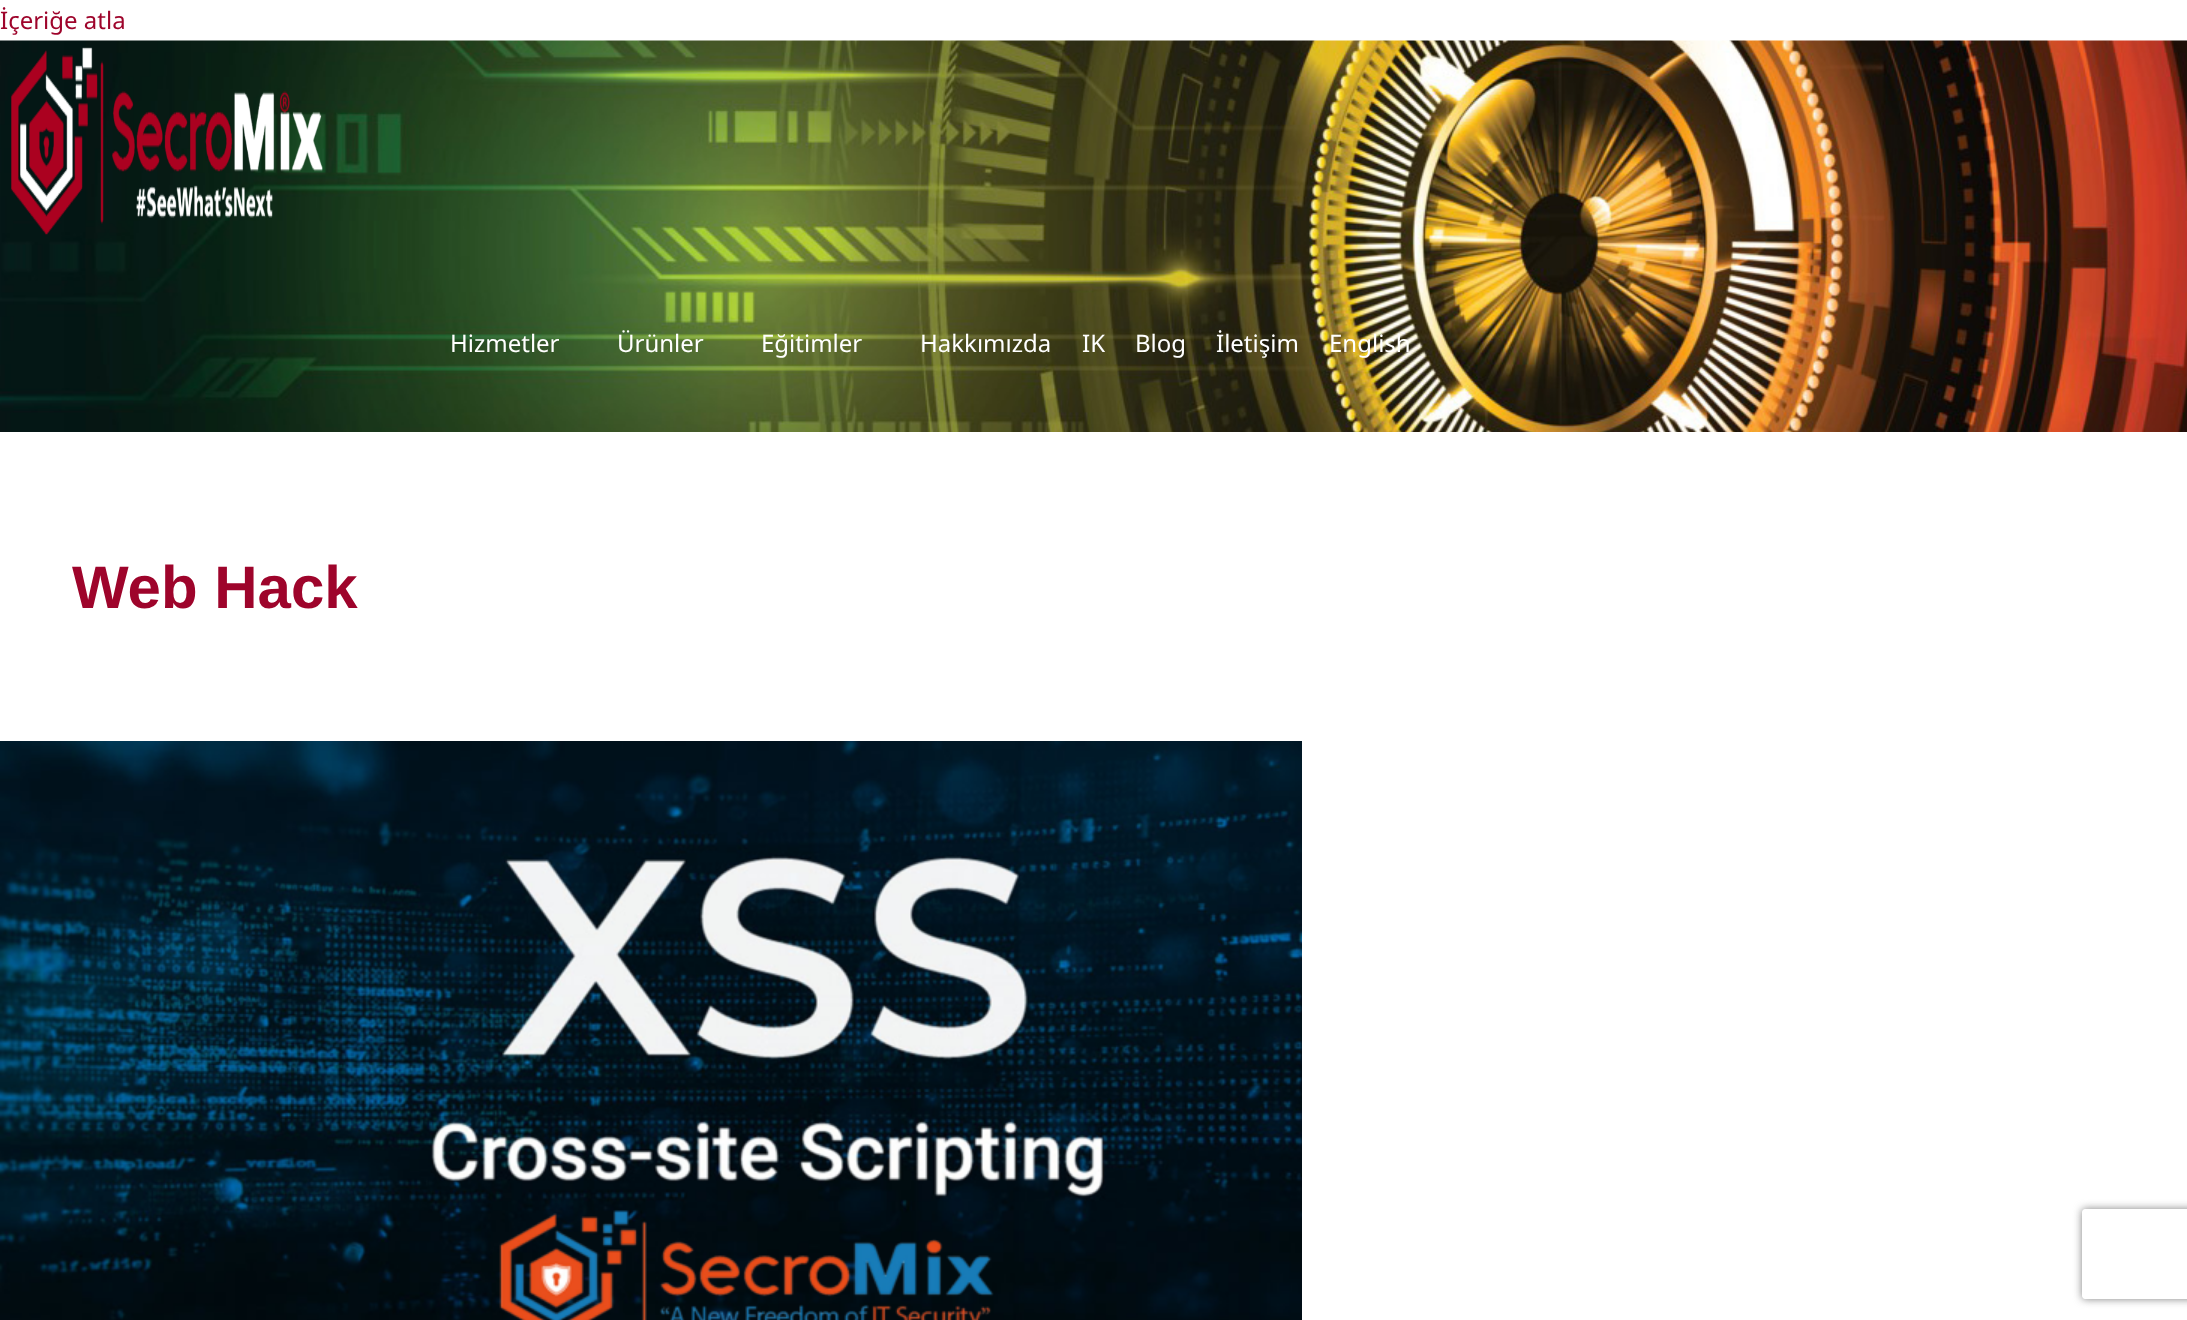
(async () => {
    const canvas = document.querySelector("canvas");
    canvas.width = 2187;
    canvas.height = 1320;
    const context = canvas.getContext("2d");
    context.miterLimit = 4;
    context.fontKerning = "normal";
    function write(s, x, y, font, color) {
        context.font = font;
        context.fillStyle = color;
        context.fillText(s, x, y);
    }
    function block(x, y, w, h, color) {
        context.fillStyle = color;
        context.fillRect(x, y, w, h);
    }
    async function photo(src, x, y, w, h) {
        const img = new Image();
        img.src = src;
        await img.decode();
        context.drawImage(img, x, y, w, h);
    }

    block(0, 0, 2187, 1320, "rgb(255, 255, 255)");
    write("İçeriğe atla", 0, 29, "24px Noto Sans", "rgb(158, 4, 43)");
    await photo("media/1.png", 0, 40, 2187, 392);
    await photo("media/2.png", 11, 47, 312, 188);
    write("Hizmetler", 450, 352, "24px Noto Sans", "rgb(255, 255, 255)");
    write("Ürünler", 617, 352, "24px Noto Sans", "rgb(255, 255, 255)");
    write("Eğitimler", 761, 352, "24px Noto Sans", "rgb(255, 255, 255)");
    write("Hakkımızda", 920, 352, "24px Noto Sans", "rgb(255, 255, 255)");
    write("IK", 1082, 352, "24px Noto Sans", "rgb(255, 255, 255)");
    write("Blog", 1135, 352, "24px Noto Sans", "rgb(255, 255, 255)");
    write("İletişim", 1216, 352, "24px Noto Sans", "rgb(255, 255, 255)");
    write("English", 1329, 352, "24px Noto Sans", "rgb(255, 255, 255)");
    write("Web Hack", 72, 608, "bold 60px Liberation Sans", "rgb(158, 4, 43)");
    await photo("media/3.png", 0, 741, 1302, 579);
    context.save();
    context.beginPath();
    context.moveTo(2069, 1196);
    context.lineTo(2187, 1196);
    context.lineTo(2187, 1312);
    context.lineTo(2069, 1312);
    context.closePath();
    context.moveTo(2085, 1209);
    context.lineTo(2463, 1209);
    context.bezierCurveTo(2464.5, 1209, 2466, 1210.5, 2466, 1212);
    context.lineTo(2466, 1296);
    context.bezierCurveTo(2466, 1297.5, 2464.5, 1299, 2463, 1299);
    context.lineTo(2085, 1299);
    context.bezierCurveTo(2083.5, 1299, 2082, 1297.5, 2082, 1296);
    context.lineTo(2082, 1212);
    context.bezierCurveTo(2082, 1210.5, 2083.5, 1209, 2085, 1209);
    context.closePath();
    context.clip("evenodd");
    context.fillStyle = "rgb(128, 128, 128)";
    context.filter = "blur(4px)";
    context.beginPath();
    context.roundRect(2082, 1209, 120, 90, 3);
    context.fill();
    context.filter = "none";
    context.restore();
})();
